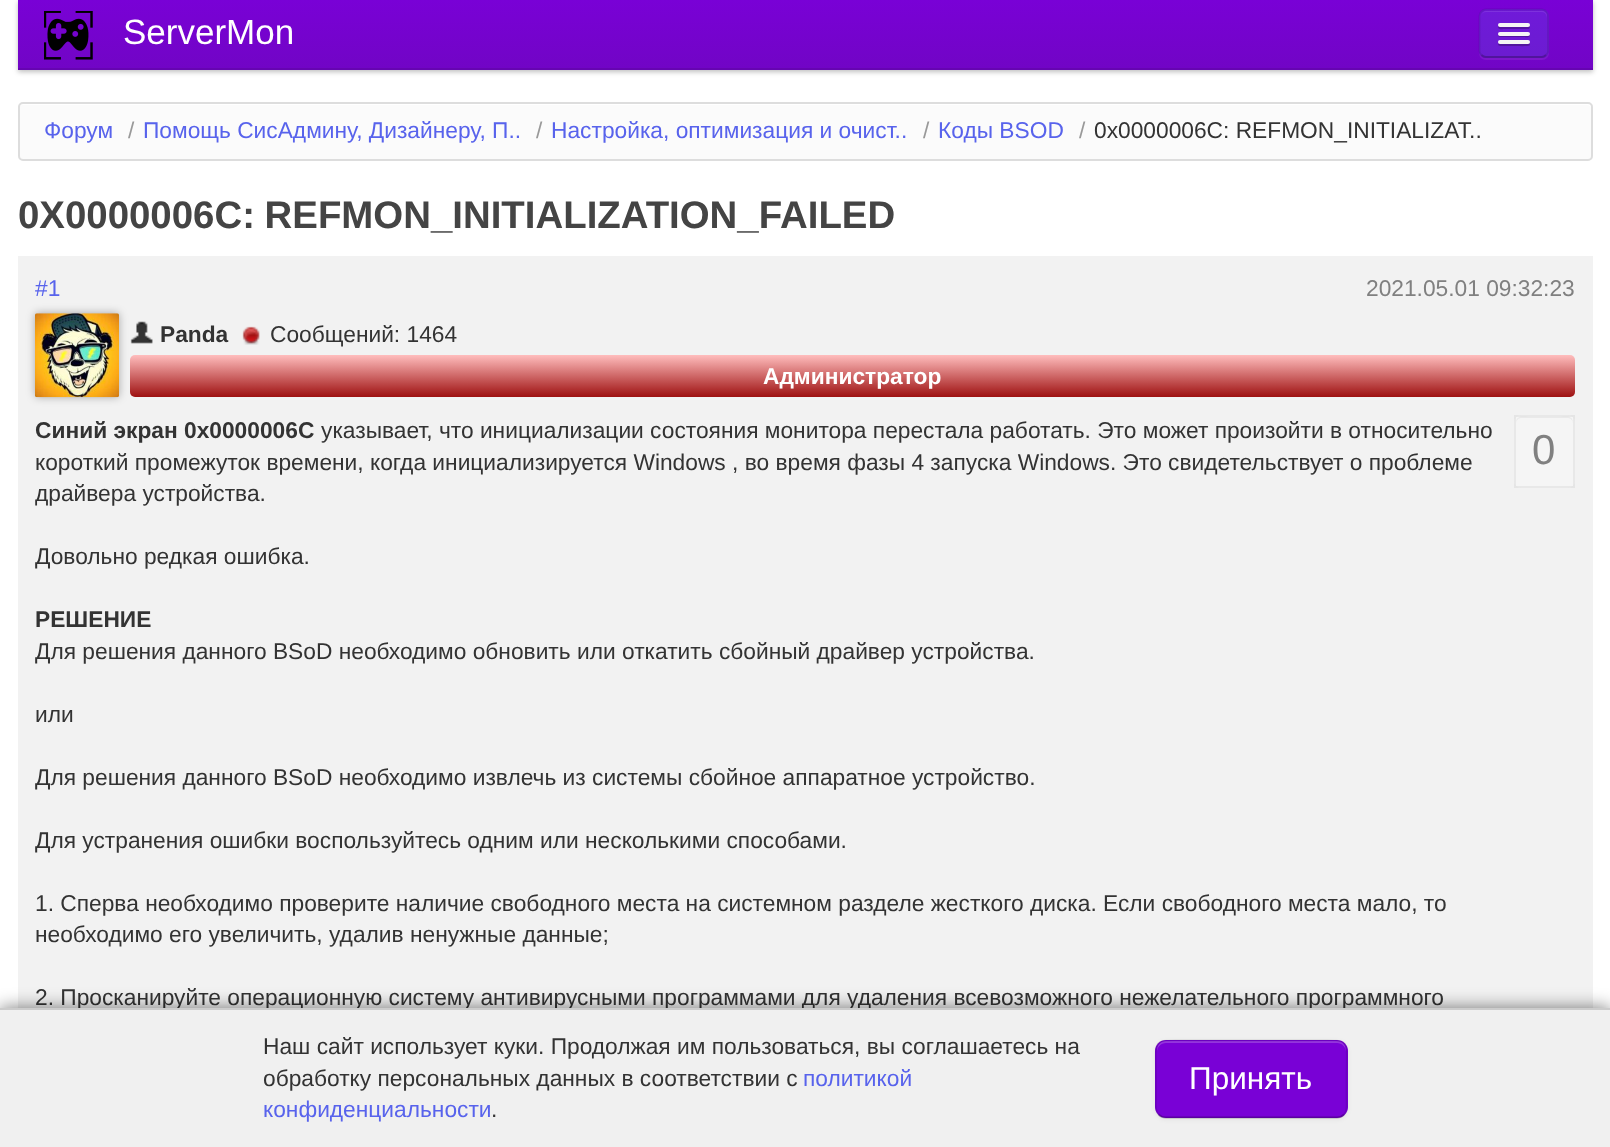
(async () => {
    const canvas = document.querySelector("canvas");
    canvas.width = 1610;
    canvas.height = 1147;
    const context = canvas.getContext("2d");
    context.miterLimit = 4;
    context.fontKerning = "normal";
    function write(s, x, y, font, color) {
        context.font = font;
        context.fillStyle = color;
        context.fillText(s, x, y);
    }
    function block(x, y, w, h, color) {
        context.fillStyle = color;
        context.fillRect(x, y, w, h);
    }
    function card(x, y, w, h, r, color) {
        context.fillStyle = color;
        context.beginPath();
        context.roundRect(x, y, w, h, r);
        context.fill();
    }
    async function photo(src, x, y, w, h) {
        const img = new Image();
        img.src = src;
        await img.decode();
        context.drawImage(img, x, y, w, h);
    }
    let gradient;

    block(0, 0, 1610, 1147, "rgb(255, 255, 255)");
    context.fillStyle = "rgba(0, 0, 0, 0.25)";
    context.filter = "blur(2.5px)";
    context.beginPath();
    context.rect(18, 2, 1575, 70);
    context.fill();
    context.filter = "none";
    gradient = context.createLinearGradient(805, 0, 805, 70);
    gradient.addColorStop(0, "rgb(121, 1, 214)");
    gradient.addColorStop(1, "rgb(113, 5, 197)");
    context.fillStyle = gradient;
    context.fillRect(18, 0, 1575, 68);
    block(18, 68, 1575, 2, "rgb(102, 5, 177)");
    await photo("media/1.png", 44, 11, 49, 49);
    write("ServerMon", 123, 44, "35px Liberation Sans", "rgb(255, 255, 255)");
    context.fillStyle = "rgb(125, 23, 204)";
    context.beginPath();
    context.moveTo(1479, 53);
    context.bezierCurveTo(1479, 57, 1482, 60, 1486, 60);
    context.lineTo(1542, 60);
    context.bezierCurveTo(1546, 60, 1549, 57, 1549, 53);
    context.lineTo(1549, 16);
    context.lineTo(1549, 51);
    context.bezierCurveTo(1549, 55, 1546, 58, 1542, 58);
    context.lineTo(1486, 58);
    context.bezierCurveTo(1483, 58, 1480, 56, 1479, 53);
    context.closePath();
    context.fill();
    card(1479, 9, 70, 49, 7, "rgba(88, 99, 236, 0.25)");
    context.fillStyle = "rgb(126, 49, 221)";
    context.beginPath();
    context.moveTo(1486, 12);
    context.lineTo(1542, 12);
    context.bezierCurveTo(1545, 12, 1547, 15, 1547, 18);
    context.lineTo(1547, 16);
    context.bezierCurveTo(1547, 13, 1545, 11, 1542, 11);
    context.lineTo(1486, 11);
    context.bezierCurveTo(1484, 11, 1482, 13, 1481, 15);
    context.bezierCurveTo(1482, 13, 1484, 12, 1486, 12);
    context.closePath();
    context.fill();
    context.beginPath();
    context.moveTo(1546, 55);
    context.bezierCurveTo(1545, 56, 1543.5, 57, 1542, 57);
    context.lineTo(1486, 57);
    context.bezierCurveTo(1484, 57, 1482.5, 56, 1481.5, 55);
    context.strokeStyle = "rgba(0, 0, 0, 0.25)";
    context.lineWidth = 1.8;
    context.stroke();
    context.beginPath();
    context.moveTo(1481.5, 55);
    context.bezierCurveTo(1480.5, 54, 1479.5, 52.5, 1479.5, 51);
    context.lineTo(1479.5, 16);
    context.bezierCurveTo(1479.5, 14, 1480.5, 12.5, 1481.5, 11.5);
    context.bezierCurveTo(1482.5, 10.5, 1484, 9.5, 1486, 9.5);
    context.lineTo(1542, 9.5);
    context.bezierCurveTo(1543.5, 9.5, 1545, 10.5, 1546, 11.5);
    context.bezierCurveTo(1547, 12.5, 1548, 14, 1548, 16);
    context.lineTo(1548, 51);
    context.bezierCurveTo(1548, 52.5, 1547, 54, 1546, 55);
    context.strokeStyle = "rgba(0, 0, 0, 0.1)";
    context.stroke();
    context.fillStyle = "rgb(83, 20, 161)";
    context.beginPath();
    context.moveTo(1498.5, 25.5);
    context.bezierCurveTo(1498, 26, 1498, 27, 1498, 27.5);
    context.bezierCurveTo(1498.5, 30, 1503.5, 29, 1504.5, 29);
    context.lineTo(1528, 29);
    context.bezierCurveTo(1530, 29, 1530.5, 26.5, 1529, 25.5);
    context.lineTo(1528, 26);
    context.lineTo(1499.5, 26);
    context.closePath();
    context.fill();
    card(1498, 23, 32, 4, 2, "rgb(245, 245, 245)");
    context.fillStyle = "rgb(82, 20, 160)";
    context.beginPath();
    context.moveTo(1498, 34);
    context.bezierCurveTo(1496.5, 38, 1504, 37, 1504.5, 37);
    context.lineTo(1523.5, 37);
    context.bezierCurveTo(1524.5, 37, 1529.5, 38, 1530, 35.5);
    context.bezierCurveTo(1530, 35, 1530, 34, 1529.5, 33.5);
    context.bezierCurveTo(1529.5, 34.5, 1528.5, 35, 1528, 35);
    context.lineTo(1500, 35);
    context.bezierCurveTo(1499, 35, 1498.5, 34.5, 1498, 34);
    context.closePath();
    context.fill();
    card(1498, 32, 32, 4, 2, "rgb(245, 245, 245)");
    context.fillStyle = "rgb(82, 21, 158)";
    context.beginPath();
    context.moveTo(1498.5, 43);
    context.bezierCurveTo(1496, 47, 1504, 46, 1504.5, 46);
    context.lineTo(1514, 46);
    context.bezierCurveTo(1516.5, 46, 1528, 46.5, 1529.5, 45.5);
    context.bezierCurveTo(1530, 44.5, 1530, 43.5, 1529.5, 42.5);
    context.lineTo(1528.5, 43.5);
    context.lineTo(1499.5, 43.5);
    context.closePath();
    context.fill();
    card(1498, 40, 32, 4, 2, "rgb(245, 245, 245)");
    card(18, 102, 1575, 59, 5, "rgb(251, 251, 251)");
    context.fillStyle = "rgb(255, 255, 255)";
    context.beginPath();
    context.moveTo(23, 105);
    context.lineTo(1587, 105);
    context.bezierCurveTo(1589, 105, 1591, 107, 1591, 108);
    context.lineTo(1591, 107);
    context.bezierCurveTo(1591, 105, 1589, 103, 1587, 103);
    context.lineTo(23, 103);
    context.bezierCurveTo(21, 103, 19, 105, 19, 107);
    context.lineTo(19, 108);
    context.bezierCurveTo(19, 107, 21, 105, 23, 105);
    context.closePath();
    context.fill();
    context.beginPath();
    context.roundRect(19, 103, 1573, 57, 4);
    context.strokeStyle = "rgb(221, 221, 221)";
    context.lineWidth = 2;
    context.stroke();
    write("Форум", 44, 138, "22.75px Liberation Sans", "rgb(88, 99, 236)");
    write("/", 128, 138, "22.75px Liberation Sans", "rgb(153, 153, 153)");
    write("Помощь СисАдмину, Дизайнеру, П..", 143, 138, "22.75px Liberation Sans", "rgb(88, 99, 236)");
    write("/", 536, 138, "22.75px Liberation Sans", "rgb(153, 153, 153)");
    write("Настройка, оптимизация и очист..", 551, 138, "22.75px Liberation Sans", "rgb(88, 99, 236)");
    write("/", 923, 138, "22.75px Liberation Sans", "rgb(153, 153, 153)");
    write("Коды BSOD", 938, 138, "22.75px Liberation Sans", "rgb(88, 99, 236)");
    write("/", 1079, 138, "22.75px Liberation Sans", "rgb(153, 153, 153)");
    write("0x0000006C: REFMON_INITIALIZAT..", 1094, 138, "22.75px Liberation Sans", "rgb(51, 51, 51)");
    context.wordSpacing = "-1px";
    write("0X0000006C: REFMON_INITIALIZATION_FAILED", 18, 228, "bold 38.4px Liberation Sans", "rgb(68, 68, 68)");
    block(18, 256, 1575, 752, "rgb(242, 242, 242)");
    context.wordSpacing = "0px";
    write("#1", 35, 296, "22.75px Liberation Sans", "rgb(88, 99, 236)");
    write("2021.05.01 09:32:23", 1366, 296, "22.75px Liberation Sans", "rgb(128, 128, 128)");
    gradient = context.createLinearGradient(852, 355, 852, 397);
    gradient.addColorStop(0, "rgb(255, 189, 189)");
    gradient.addColorStop(1, "rgb(158, 17, 17)");
    context.fillStyle = gradient;
    context.beginPath();
    context.roundRect(130, 355, 1445, 42, 5);
    context.fill();
    context.fillStyle = "rgba(0, 0, 0, 0.3)";
    context.filter = "blur(4.5px)";
    context.beginPath();
    context.roundRect(35, 313, 84, 84, 2);
    context.fill();
    context.filter = "none";
    await photo("media/2.png", 35, 313, 84, 85);
    await photo("media/3.png", 130, 321, 23, 23);
    write("Panda", 160, 342, "bold 22.75px Liberation Sans", "rgb(51, 51, 51)");
    await photo("media/4.png", 242, 326, 18, 19);
    write("Сообщений: 1464", 270, 342, "22.75px Liberation Sans", "rgb(51, 51, 51)");
    write("Администратор", 763, 384, "bold 22.75px Liberation Sans", "rgb(255, 255, 255)");
    write("Синий экран 0x0000006С", 35, 438, "bold 22.75px Liberation Sans", "rgb(51, 51, 51)");
    write("указывает, что инициализации состояния монитора перестала работать. Это может произойти в относительно", 321, 438, "22.75px Liberation Sans", "rgb(51, 51, 51)");
    write("короткий промежуток времени, когда инициализируется Windows , во время фазы 4 запуска Windows. Это свидетельствует о проблеме", 35, 470, "22.75px Liberation Sans", "rgb(51, 51, 51)");
    write("драйвера устройства.", 35, 501, "22.75px Liberation Sans", "rgb(51, 51, 51)");
    write("Довольно редкая ошибка.", 35, 564, "22.75px Liberation Sans", "rgb(51, 51, 51)");
    write("РЕШЕНИЕ", 35, 627, "bold 22.75px Liberation Sans", "rgb(51, 51, 51)");
    write("Для решения данного BSoD необходимо обновить или откатить сбойный драйвер устройства.", 35, 659, "22.75px Liberation Sans", "rgb(51, 51, 51)");
    write("или", 35, 722, "22.75px Liberation Sans", "rgb(51, 51, 51)");
    write("Для решения данного BSoD необходимо извлечь из системы сбойное аппаратное устройство.", 35, 785, "22.75px Liberation Sans", "rgb(51, 51, 51)");
    write("Для устранения ошибки воспользуйтесь одним или несколькими способами.", 35, 848, "22.75px Liberation Sans", "rgb(51, 51, 51)");
    write("1. Сперва необходимо проверите наличие свободного места на системном разделе жесткого диска. Если свободного места мало, то", 35, 911, "22.75px Liberation Sans", "rgb(51, 51, 51)");
    write("необходимо его увеличить, удалив ненужные данные;", 35, 942, "22.75px Liberation Sans", "rgb(51, 51, 51)");
    write("2. Просканируйте операционную систему антивирусными программами для удаления всевозможного нежелательного программного", 35, 1005, "22.75px Liberation Sans", "rgb(51, 51, 51)");
    card(1514, 415, 61, 73, 7, "rgb(245, 245, 245)");
    context.fillStyle = "rgb(233, 233, 233)";
    context.beginPath();
    context.moveTo(1521, 418);
    context.lineTo(1568, 418);
    context.bezierCurveTo(1571, 418, 1573, 421, 1573, 424);
    context.bezierCurveTo(1573, 415, 1568, 417, 1560, 417);
    context.lineTo(1529, 417);
    context.bezierCurveTo(1521, 417, 1516, 415, 1516, 424);
    context.bezierCurveTo(1516, 421, 1518, 418, 1521, 418);
    context.closePath();
    context.fill();
    context.strokeStyle = "rgba(0, 0, 0, 0.05)";
    context.strokeRect(1515, 416, 59, 71);
    write("0", 1532, 464, "42px Liberation Sans", "rgb(128, 128, 128)");
    context.fillStyle = "rgba(0, 0, 0, 0.53)";
    context.filter = "blur(9px)";
    context.beginPath();
    context.rect(0, 1008, 1610, 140);
    context.fill();
    context.filter = "none";
    block(0, 1010, 1610, 137, "rgb(240, 240, 240)");
    block(0, 1008, 1610, 2, "rgb(204, 204, 204)");
    write("Наш сайт использует куки. Продолжая им пользоваться, вы соглашаетесь на", 263, 1054, "22.75px Liberation Sans", "rgb(51, 51, 51)");
    write("обработку персональных данных в соответствии с", 263, 1086, "22.75px Liberation Sans", "rgb(51, 51, 51)");
    write("политикой", 803, 1086, "22.75px Liberation Sans", "rgb(88, 99, 236)");
    write("конфиденциальности", 263, 1117, "22.75px Liberation Sans", "rgb(88, 99, 236)");
    write(".", 491, 1117, "22.75px Liberation Sans", "rgb(51, 51, 51)");
    context.fillStyle = "rgba(0, 0, 0, 0.05)";
    context.filter = "blur(2px)";
    context.beginPath();
    context.roundRect(1155, 1041, 193, 79, 11);
    context.fill();
    context.filter = "none";
    card(1155, 1040, 193, 78, 11, "rgb(121, 1, 214)");
    context.fillStyle = "rgb(148, 52, 222)";
    context.beginPath();
    context.moveTo(1166, 1043);
    context.lineTo(1337, 1043);
    context.bezierCurveTo(1342, 1043, 1346, 1047, 1346, 1052);
    context.lineTo(1346, 1050);
    context.bezierCurveTo(1346, 1045, 1342, 1041, 1337, 1041);
    context.lineTo(1166, 1041);
    context.bezierCurveTo(1161, 1041, 1157, 1045, 1157, 1050);
    context.lineTo(1157, 1052);
    context.bezierCurveTo(1157, 1047, 1161, 1043, 1166, 1043);
    context.closePath();
    context.fill();
    context.beginPath();
    context.moveTo(1344, 1114.5);
    context.bezierCurveTo(1342, 1116.5, 1339.5, 1117.5, 1337, 1117.5);
    context.lineTo(1165.5, 1117.5);
    context.bezierCurveTo(1163, 1117.5, 1160.5, 1116.5, 1158.5, 1114.5);
    context.strokeStyle = "rgba(0, 0, 0, 0.25)";
    context.lineWidth = 1.8;
    context.stroke();
    context.beginPath();
    context.moveTo(1158.5, 1114.5);
    context.bezierCurveTo(1154.5, 1110.5, 1156, 1103.5, 1156, 1098);
    context.lineTo(1156, 1079);
    context.bezierCurveTo(1156, 1035.5, 1149.5, 1040.5, 1194, 1040.5);
    context.lineTo(1308.5, 1040.5);
    context.bezierCurveTo(1353, 1040.5, 1346.5, 1035.5, 1346.5, 1079);
    context.lineTo(1346.5, 1098);
    context.bezierCurveTo(1346.5, 1103.5, 1348, 1110.5, 1344, 1114.5);
    context.strokeStyle = "rgba(0, 0, 0, 0.1)";
    context.stroke();
    write("Принять", 1189, 1089, "31.5px Liberation Sans", "rgb(255, 255, 255)");
})();
